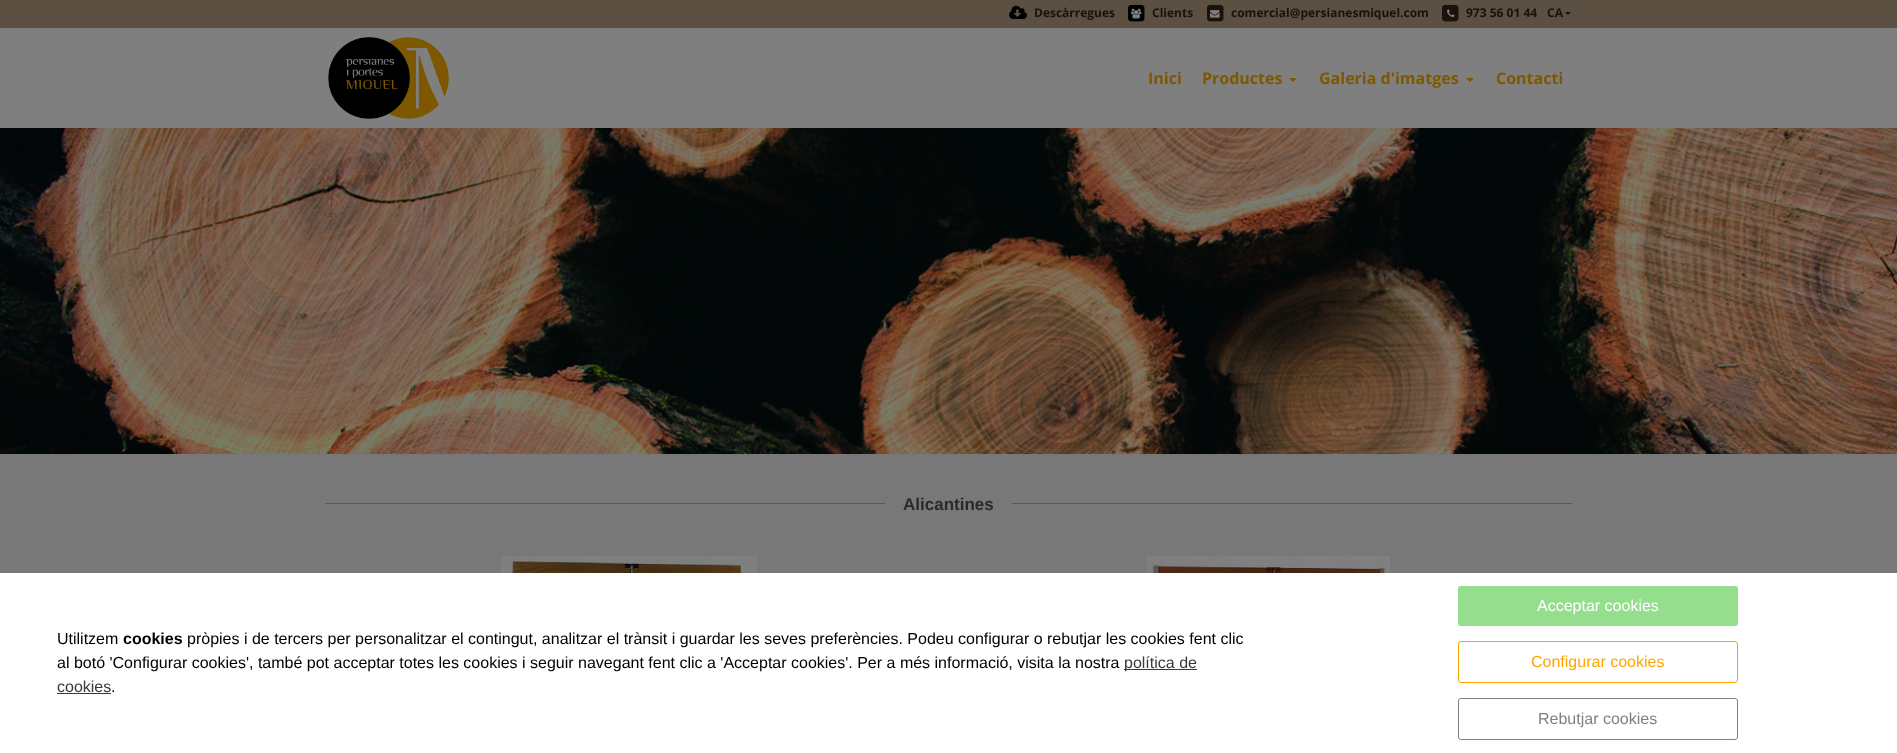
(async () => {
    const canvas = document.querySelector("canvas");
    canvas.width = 1897;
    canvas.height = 753;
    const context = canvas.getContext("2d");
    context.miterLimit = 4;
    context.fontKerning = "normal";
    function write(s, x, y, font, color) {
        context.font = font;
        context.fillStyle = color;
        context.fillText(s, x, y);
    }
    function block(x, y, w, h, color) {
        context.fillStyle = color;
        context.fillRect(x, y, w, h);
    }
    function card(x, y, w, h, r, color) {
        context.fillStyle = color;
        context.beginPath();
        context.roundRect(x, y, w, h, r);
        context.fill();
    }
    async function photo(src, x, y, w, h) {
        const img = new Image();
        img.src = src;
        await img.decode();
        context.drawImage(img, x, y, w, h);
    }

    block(0, 0, 1897, 753, "rgb(120, 120, 120)");
    block(0, 0, 1897, 27, "rgb(92, 80, 67)");
    block(0, 27, 1897, 1, "rgb(90, 79, 66)");
    await photo("media/1.png", 1009, 5, 18, 14);
    write("Descàrregues", 1034, 17, "bold 12px Open Sans", "rgb(27, 18, 10)");
    await photo("media/2.png", 1128, 4, 17, 18);
    await photo("media/3.png", 1131, 8, 11, 11);
    write("Clients", 1152, 17, "bold 12px Open Sans", "rgb(27, 18, 10)");
    await photo("media/4.png", 1207, 4, 17, 18);
    await photo("media/5.png", 1210, 10, 10, 8);
    write("comercial@persianesmiquel.com", 1231, 17, "bold 12px Open Sans", "rgb(27, 18, 10)");
    await photo("media/4.png", 1442, 4, 17, 18);
    await photo("media/6.png", 1447, 9, 8, 8);
    write("973 56 01 44", 1466, 17, "bold 12px Open Sans", "rgb(27, 18, 10)");
    write("CA", 1547, 17, "bold 12px Open Sans", "rgb(27, 18, 10)");
    context.beginPath();
    context.moveTo(1565, 12);
    context.lineTo(1571, 12);
    context.lineTo(1568, 15);
    context.closePath();
    context.fill();
    block(0, 28, 1897, 100, "rgb(127, 127, 127)");
    await photo("media/7.png", 328, 37, 121, 82);
    write("Inici", 1148, 84, "bold 16px Open Sans", "rgb(125, 88, 0)");
    write("Productes", 1202, 84, "bold 16px Open Sans", "rgb(125, 88, 0)");
    context.beginPath();
    context.moveTo(1289, 78);
    context.lineTo(1297, 78);
    context.lineTo(1293, 82);
    context.closePath();
    context.fill();
    write("Galeria d'imatges", 1319, 84, "bold 16px Open Sans", "rgb(125, 88, 0)");
    context.beginPath();
    context.moveTo(1466, 78);
    context.lineTo(1474, 78);
    context.lineTo(1470, 82);
    context.closePath();
    context.fill();
    write("Contacti", 1496, 84, "bold 16px Open Sans", "rgb(125, 88, 0)");
    await photo("media/8.png", 0, 128, 1897, 326);
    block(325, 503, 560, 1, "rgb(125, 88, 0)");
    write("Alicantines", 903, 510, "bold 17px Liberation Sans", "rgb(42, 42, 42)");
    block(1012, 503, 560, 1, "rgb(125, 88, 0)");
    await photo("media/9.png", 501, 556, 256, 17);
    await photo("media/10.png", 1147, 556, 243, 17);
    block(0, 573, 1897, 180, "rgb(255, 255, 255)");
    write("Utilitzem", 57, 644, "16px Liberation Sans", "rgb(0, 0, 0)");
    write("cookies", 123, 644, "bold 16px Liberation Sans", "rgb(0, 0, 0)");
    write("pròpies i de tercers per personalitzar el contingut, analitzar el trànsit i guardar les seves preferències. Podeu configurar o rebutjar les cookies fent clic", 187, 644, "16px Liberation Sans", "rgb(0, 0, 0)");
    write("al botó 'Configurar cookies', també pot acceptar totes les cookies i seguir navegant fent clic a 'Acceptar cookies'. Per a més informació, visita la nostra", 57, 668, "16px Liberation Sans", "rgb(0, 0, 0)");
    block(1124, 669, 73, 1, "rgb(55, 58, 60)");
    write("política de", 1124, 668, "16px Liberation Sans", "rgb(55, 58, 60)");
    write("cookies", 57, 692, "16px Liberation Sans", "rgb(55, 58, 60)");
    block(57, 693, 54, 1, "rgb(55, 58, 60)");
    write(".", 111, 692, "16px Liberation Sans", "rgb(0, 0, 0)");
    card(1458, 586, 280, 40, 3, "rgb(149, 222, 142)");
    write("Acceptar cookies", 1537, 611, "16px Liberation Sans", "rgb(255, 255, 255)");
    context.beginPath();
    context.roundRect(1458.5, 641.5, 279, 41, 2.5);
    context.strokeStyle = "rgb(255, 165, 0)";
    context.stroke();
    write("Configurar cookies", 1531, 667, "16px Liberation Sans", "rgb(255, 165, 0)");
    context.beginPath();
    context.roundRect(1458.5, 698.5, 279, 41, 2.5);
    context.strokeStyle = "rgb(128, 128, 128)";
    context.stroke();
    write("Rebutjar cookies", 1538, 724, "16px Liberation Sans", "rgb(128, 128, 128)");
})();
